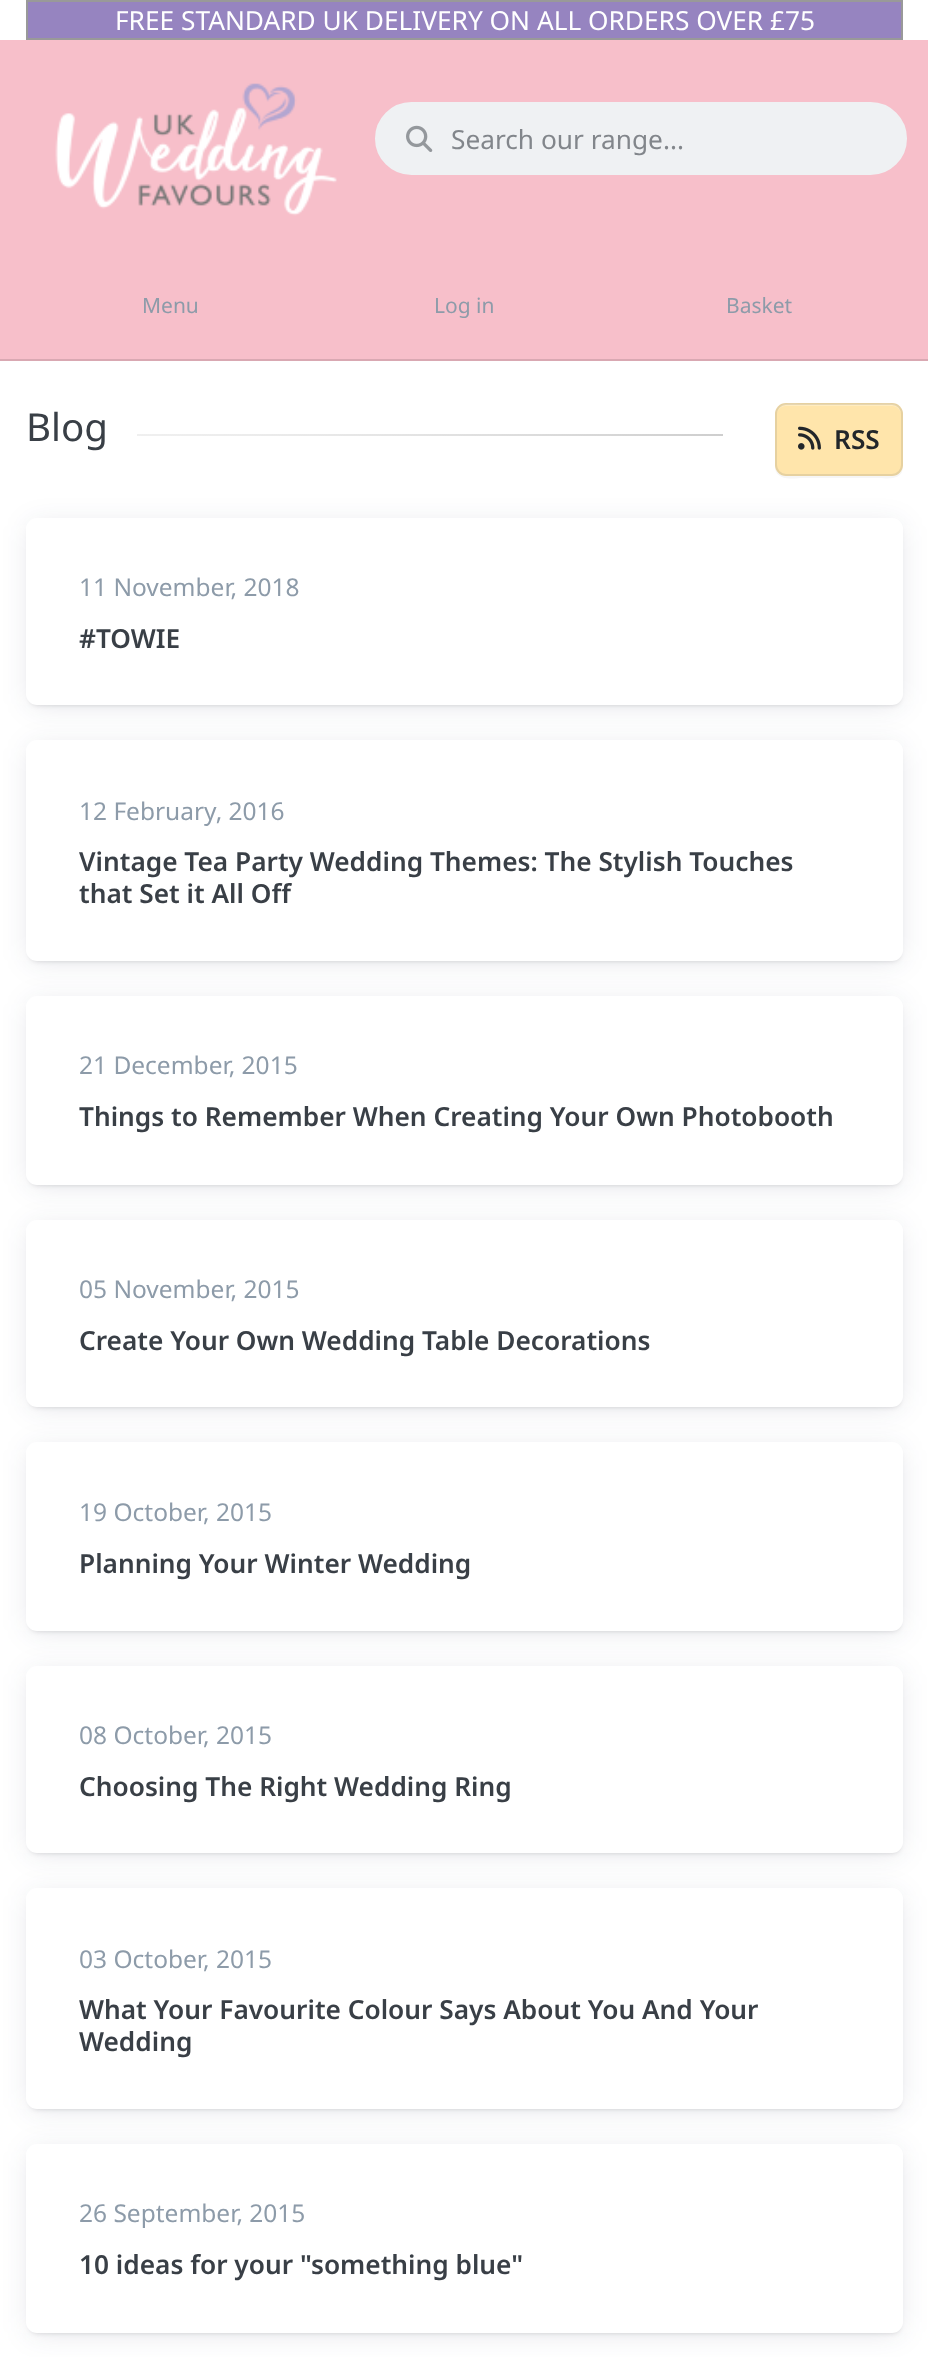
(async () => {
    const canvas = document.querySelector("canvas");
    canvas.width = 928;
    canvas.height = 2357;
    const context = canvas.getContext("2d");
    context.miterLimit = 4;
    context.fontKerning = "normal";
    function write(s, x, y, font, color) {
        context.font = font;
        context.fillStyle = color;
        context.fillText(s, x, y);
    }
    function block(x, y, w, h, color) {
        context.fillStyle = color;
        context.fillRect(x, y, w, h);
    }
    function card(x, y, w, h, r, color) {
        context.fillStyle = color;
        context.beginPath();
        context.roundRect(x, y, w, h, r);
        context.fill();
    }
    async function photo(src, x, y, w, h) {
        const img = new Image();
        img.src = src;
        await img.decode();
        context.drawImage(img, x, y, w, h);
    }
    let gradient;

    block(0, 0, 928, 2357, "rgb(255, 255, 255)");
    context.fillStyle = "rgb(150, 132, 192)";
    context.beginPath();
    context.rect(27, 1, 875, 38);
    context.fill();
    context.strokeStyle = "rgb(153, 153, 153)";
    context.lineWidth = 2;
    context.stroke();
    write("FREE STANDARD UK DELIVERY ON ALL ORDERS OVER £75", 115, 30, "26.25px Noto Sans", "rgb(255, 255, 255)");
    block(0, 40, 928, 319, "rgb(247, 191, 202)");
    block(0, 359, 928, 2, "rgb(217, 168, 178)");
    await photo("media/1.png", 55, 83, 282, 133);
    context.fillStyle = "rgb(239, 241, 243)";
    context.beginPath();
    context.roundRect(376, 103, 530, 71, 35.5);
    context.fill();
    context.strokeStyle = "rgb(239, 241, 243)";
    context.stroke();
    await photo("media/2.png", 406, 125, 27, 27);
    write("Search our range...", 451, 149, "26.25px Noto Sans", "rgb(130, 134, 139)");
    write("Menu", 142, 313, "21px Noto Sans", "rgb(141, 155, 169)");
    write("Log in", 434, 313, "21px Noto Sans", "rgb(141, 155, 169)");
    write("Basket", 726, 313, "21px Noto Sans", "rgb(141, 155, 169)");
    write("Blog", 26, 441, "38.5px Noto Sans", "rgb(57, 63, 70)");
    gradient = context.createRadialGradient(26, 357062.5, 0, 26, 357062.5, 985);
    gradient.addColorStop(0.25, "rgb(255, 255, 255)");
    gradient.addColorStop(1, "rgb(191, 191, 191)");
    context.fillStyle = gradient;
    context.beginPath();
    context.rect(137, 434, 586, 2);
    context.save();
    context.clip();
    context.scale(1, 1.2 / 985);
    context.fillRect(0, 0, 928, 1934705);
    context.restore();
    context.fillStyle = "rgb(246, 246, 246)";
    context.beginPath();
    context.moveTo(775, 413);
    context.lineTo(775, 469);
    context.bezierCurveTo(778, 482, 796, 478, 804, 478);
    context.lineTo(874, 478);
    context.bezierCurveTo(886, 478, 903, 482, 903, 466);
    context.bezierCurveTo(903, 471, 898, 476, 892, 476);
    context.lineTo(786, 476);
    context.bezierCurveTo(780, 476, 775, 471, 775, 466);
    context.closePath();
    context.fill();
    card(775, 403, 128, 73, 11, "rgb(255, 229, 171)");
    context.fillStyle = "rgb(255, 236, 192)";
    context.beginPath();
    context.moveTo(786, 406);
    context.lineTo(892, 406);
    context.bezierCurveTo(897, 406, 901, 410, 901, 415);
    context.bezierCurveTo(901, 400, 885, 404, 874, 404);
    context.lineTo(804, 404);
    context.bezierCurveTo(793, 404, 777, 400, 777, 415);
    context.bezierCurveTo(777, 410, 781, 406, 786, 406);
    context.closePath();
    context.fill();
    context.beginPath();
    context.roundRect(776, 404, 126, 71, 10);
    context.strokeStyle = "rgba(89, 97, 103, 0.15)";
    context.stroke();
    await photo("media/3.png", 798, 426, 23, 24);
    write("RSS", 834, 449, "600 26.25px Noto Sans", "rgb(34, 38, 42)");
    context.fillStyle = "rgba(0, 0, 0, 0.15)";
    context.filter = "blur(2.5px)";
    context.beginPath();
    context.roundRect(30, 525, 870, 180, 7);
    context.fill();
    context.filter = "none";
    context.fillStyle = "rgba(26, 33, 75, 0.12)";
    context.filter = "blur(14px)";
    context.beginPath();
    context.roundRect(30, 525, 870, 180, 7);
    context.fill();
    context.filter = "none";
    card(26, 518, 877, 187, 11, "rgb(255, 255, 255)");
    write("11 November, 2018", 79, 596, "24.5px Noto Sans", "rgb(141, 155, 169)");
    write("#TOWIE", 79, 648, "600 26.25px Noto Sans", "rgb(57, 63, 70)");
    context.fillStyle = "rgba(0, 0, 0, 0.15)";
    context.filter = "blur(2.5px)";
    context.beginPath();
    context.roundRect(30, 747, 870, 214, 7);
    context.fill();
    context.filter = "none";
    context.fillStyle = "rgba(26, 33, 75, 0.12)";
    context.filter = "blur(14px)";
    context.beginPath();
    context.roundRect(30, 747, 870, 214, 7);
    context.fill();
    context.filter = "none";
    card(26, 740, 877, 221, 11, "rgb(255, 255, 255)");
    write("12 February, 2016", 79, 820, "24.5px Noto Sans", "rgb(141, 155, 169)");
    write("Vintage Tea Party Wedding Themes: The Stylish Touches", 79, 871, "600 26.25px Noto Sans", "rgb(57, 63, 70)");
    write("that Set it All Off", 79, 903, "600 26.25px Noto Sans", "rgb(57, 63, 70)");
    context.fillStyle = "rgba(0, 0, 0, 0.15)";
    context.filter = "blur(2.5px)";
    context.beginPath();
    context.roundRect(30, 1003, 870, 182, 7);
    context.fill();
    context.filter = "none";
    context.fillStyle = "rgba(26, 33, 75, 0.12)";
    context.filter = "blur(14px)";
    context.beginPath();
    context.roundRect(30, 1003, 870, 182, 7);
    context.fill();
    context.filter = "none";
    card(26, 996, 877, 189, 11, "rgb(255, 255, 255)");
    write("21 December, 2015", 79, 1074, "24.5px Noto Sans", "rgb(141, 155, 169)");
    write("Things to Remember When Creating Your Own Photobooth", 79, 1126, "600 26.25px Noto Sans", "rgb(57, 63, 70)");
    context.fillStyle = "rgba(0, 0, 0, 0.15)";
    context.filter = "blur(2.5px)";
    context.beginPath();
    context.roundRect(30, 1227, 870, 180, 7);
    context.fill();
    context.filter = "none";
    context.fillStyle = "rgba(26, 33, 75, 0.12)";
    context.filter = "blur(14px)";
    context.beginPath();
    context.roundRect(30, 1227, 870, 180, 7);
    context.fill();
    context.filter = "none";
    card(26, 1220, 877, 187, 11, "rgb(255, 255, 255)");
    write("05 November, 2015", 79, 1298, "24.5px Noto Sans", "rgb(141, 155, 169)");
    write("Create Your Own Wedding Table Decorations", 79, 1350, "600 26.25px Noto Sans", "rgb(57, 63, 70)");
    context.fillStyle = "rgba(0, 0, 0, 0.15)";
    context.filter = "blur(2.5px)";
    context.beginPath();
    context.roundRect(30, 1449, 870, 182, 7);
    context.fill();
    context.filter = "none";
    context.fillStyle = "rgba(26, 33, 75, 0.12)";
    context.filter = "blur(14px)";
    context.beginPath();
    context.roundRect(30, 1449, 870, 182, 7);
    context.fill();
    context.filter = "none";
    card(26, 1442, 877, 189, 11, "rgb(255, 255, 255)");
    write("19 October, 2015", 79, 1521, "24.5px Noto Sans", "rgb(141, 155, 169)");
    write("Planning Your Winter Wedding", 79, 1573, "600 26.25px Noto Sans", "rgb(57, 63, 70)");
    context.fillStyle = "rgba(0, 0, 0, 0.15)";
    context.filter = "blur(2.5px)";
    context.beginPath();
    context.roundRect(30, 1673, 870, 180, 7);
    context.fill();
    context.filter = "none";
    context.fillStyle = "rgba(26, 33, 75, 0.12)";
    context.filter = "blur(14px)";
    context.beginPath();
    context.roundRect(30, 1673, 870, 180, 7);
    context.fill();
    context.filter = "none";
    card(26, 1666, 877, 187, 11, "rgb(255, 255, 255)");
    write("08 October, 2015", 79, 1744, "24.5px Noto Sans", "rgb(141, 155, 169)");
    write("Choosing The Right Wedding Ring", 79, 1796, "600 26.25px Noto Sans", "rgb(57, 63, 70)");
    context.fillStyle = "rgba(0, 0, 0, 0.15)";
    context.filter = "blur(2.5px)";
    context.beginPath();
    context.roundRect(30, 1895, 870, 214, 7);
    context.fill();
    context.filter = "none";
    context.fillStyle = "rgba(26, 33, 75, 0.12)";
    context.filter = "blur(14px)";
    context.beginPath();
    context.roundRect(30, 1895, 870, 214, 7);
    context.fill();
    context.filter = "none";
    card(26, 1888, 877, 221, 11, "rgb(255, 255, 255)");
    write("03 October, 2015", 79, 1968, "24.5px Noto Sans", "rgb(141, 155, 169)");
    write("What Your Favourite Colour Says About You And Your", 79, 2019, "600 26.25px Noto Sans", "rgb(57, 63, 70)");
    write("Wedding", 79, 2051, "600 26.25px Noto Sans", "rgb(57, 63, 70)");
    context.fillStyle = "rgba(0, 0, 0, 0.15)";
    context.filter = "blur(2.5px)";
    context.beginPath();
    context.roundRect(30, 2151, 870, 182, 7);
    context.fill();
    context.filter = "none";
    context.fillStyle = "rgba(26, 33, 75, 0.12)";
    context.filter = "blur(14px)";
    context.beginPath();
    context.roundRect(30, 2151, 870, 182, 7);
    context.fill();
    context.filter = "none";
    card(26, 2144, 877, 189, 11, "rgb(255, 255, 255)");
    write("26 September, 2015", 79, 2222, "24.5px Noto Sans", "rgb(141, 155, 169)");
    write("10 ideas for your \"something blue\"", 79, 2274, "600 26.25px Noto Sans", "rgb(57, 63, 70)");
})();
